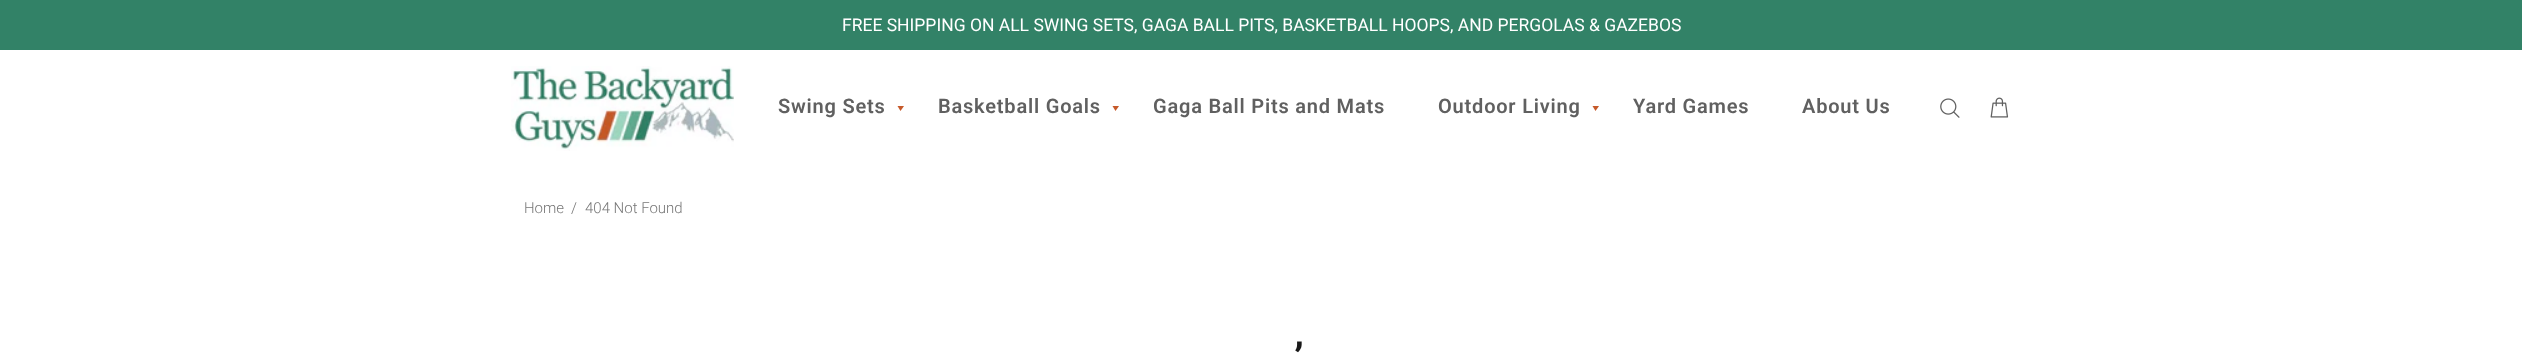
(async () => {
    const canvas = document.querySelector("canvas");
    canvas.width = 2522;
    canvas.height = 358;
    const context = canvas.getContext("2d");
    context.miterLimit = 4;
    context.fontKerning = "normal";
    function write(s, x, y, font, color) {
        context.font = font;
        context.fillStyle = color;
        context.fillText(s, x, y);
    }
    function block(x, y, w, h, color) {
        context.fillStyle = color;
        context.fillRect(x, y, w, h);
    }
    async function photo(src, x, y, w, h) {
        const img = new Image();
        img.src = src;
        await img.decode();
        context.drawImage(img, x, y, w, h);
    }

    block(0, 0, 2522, 358, "rgb(255, 255, 255)");
    block(0, 0, 2522, 50, "rgb(50, 130, 103)");
    write("FREE SHIPPING ON ALL SWING SETS, GAGA BALL PITS, BASKETBALL HOOPS, AND PERGOLAS & GAZEBOS", 842, 31, "17.5px Roboto", "rgb(255, 255, 255)");
    await photo("media/1.png", 511, 66, 223, 85);
    context.letterSpacing = "0.8px";
    write("Swing Sets", 778, 113, "600 20px Roboto", "rgb(96, 96, 96)");
    context.fillStyle = "rgb(198, 89, 42)";
    context.beginPath();
    context.moveTo(900.5, 111);
    context.lineTo(897.5, 106);
    context.lineTo(904, 106);
    context.closePath();
    context.fill();
    write("Basketball Goals", 938, 113, "600 20px Roboto", "rgb(96, 96, 96)");
    context.fillStyle = "rgb(198, 89, 42)";
    context.beginPath();
    context.moveTo(1115.5, 111);
    context.lineTo(1112.5, 106);
    context.lineTo(1119, 106);
    context.closePath();
    context.fill();
    write("Gaga Ball Pits and Mats", 1153, 113, "600 20px Roboto", "rgb(96, 96, 96)");
    write("Outdoor Living", 1438, 113, "600 20px Roboto", "rgb(96, 96, 96)");
    context.fillStyle = "rgb(198, 89, 42)";
    context.beginPath();
    context.moveTo(1595.5, 111);
    context.lineTo(1592.5, 106);
    context.lineTo(1599, 106);
    context.closePath();
    context.fill();
    write("Yard Games", 1633, 113, "600 20px Roboto", "rgb(96, 96, 96)");
    write("About Us", 1802, 113, "600 20px Roboto", "rgb(96, 96, 96)");
    await photo("media/2.png", 1940, 98, 20, 20);
    await photo("media/3.png", 1990, 97, 19, 21);
    context.letterSpacing = "0px";
    write("Home", 524, 213, "300 15px Roboto", "rgb(119, 119, 119)");
    write("/", 571, 213, "300 15px Roboto", "rgb(119, 119, 119)");
    write("404 Not Found", 585, 213, "300 15px Roboto", "rgb(119, 119, 119)");
    context.letterSpacing = "1px";
    write("’", 1294, 373, "bold 42px Roboto", "rgb(25, 25, 25)");
})();
